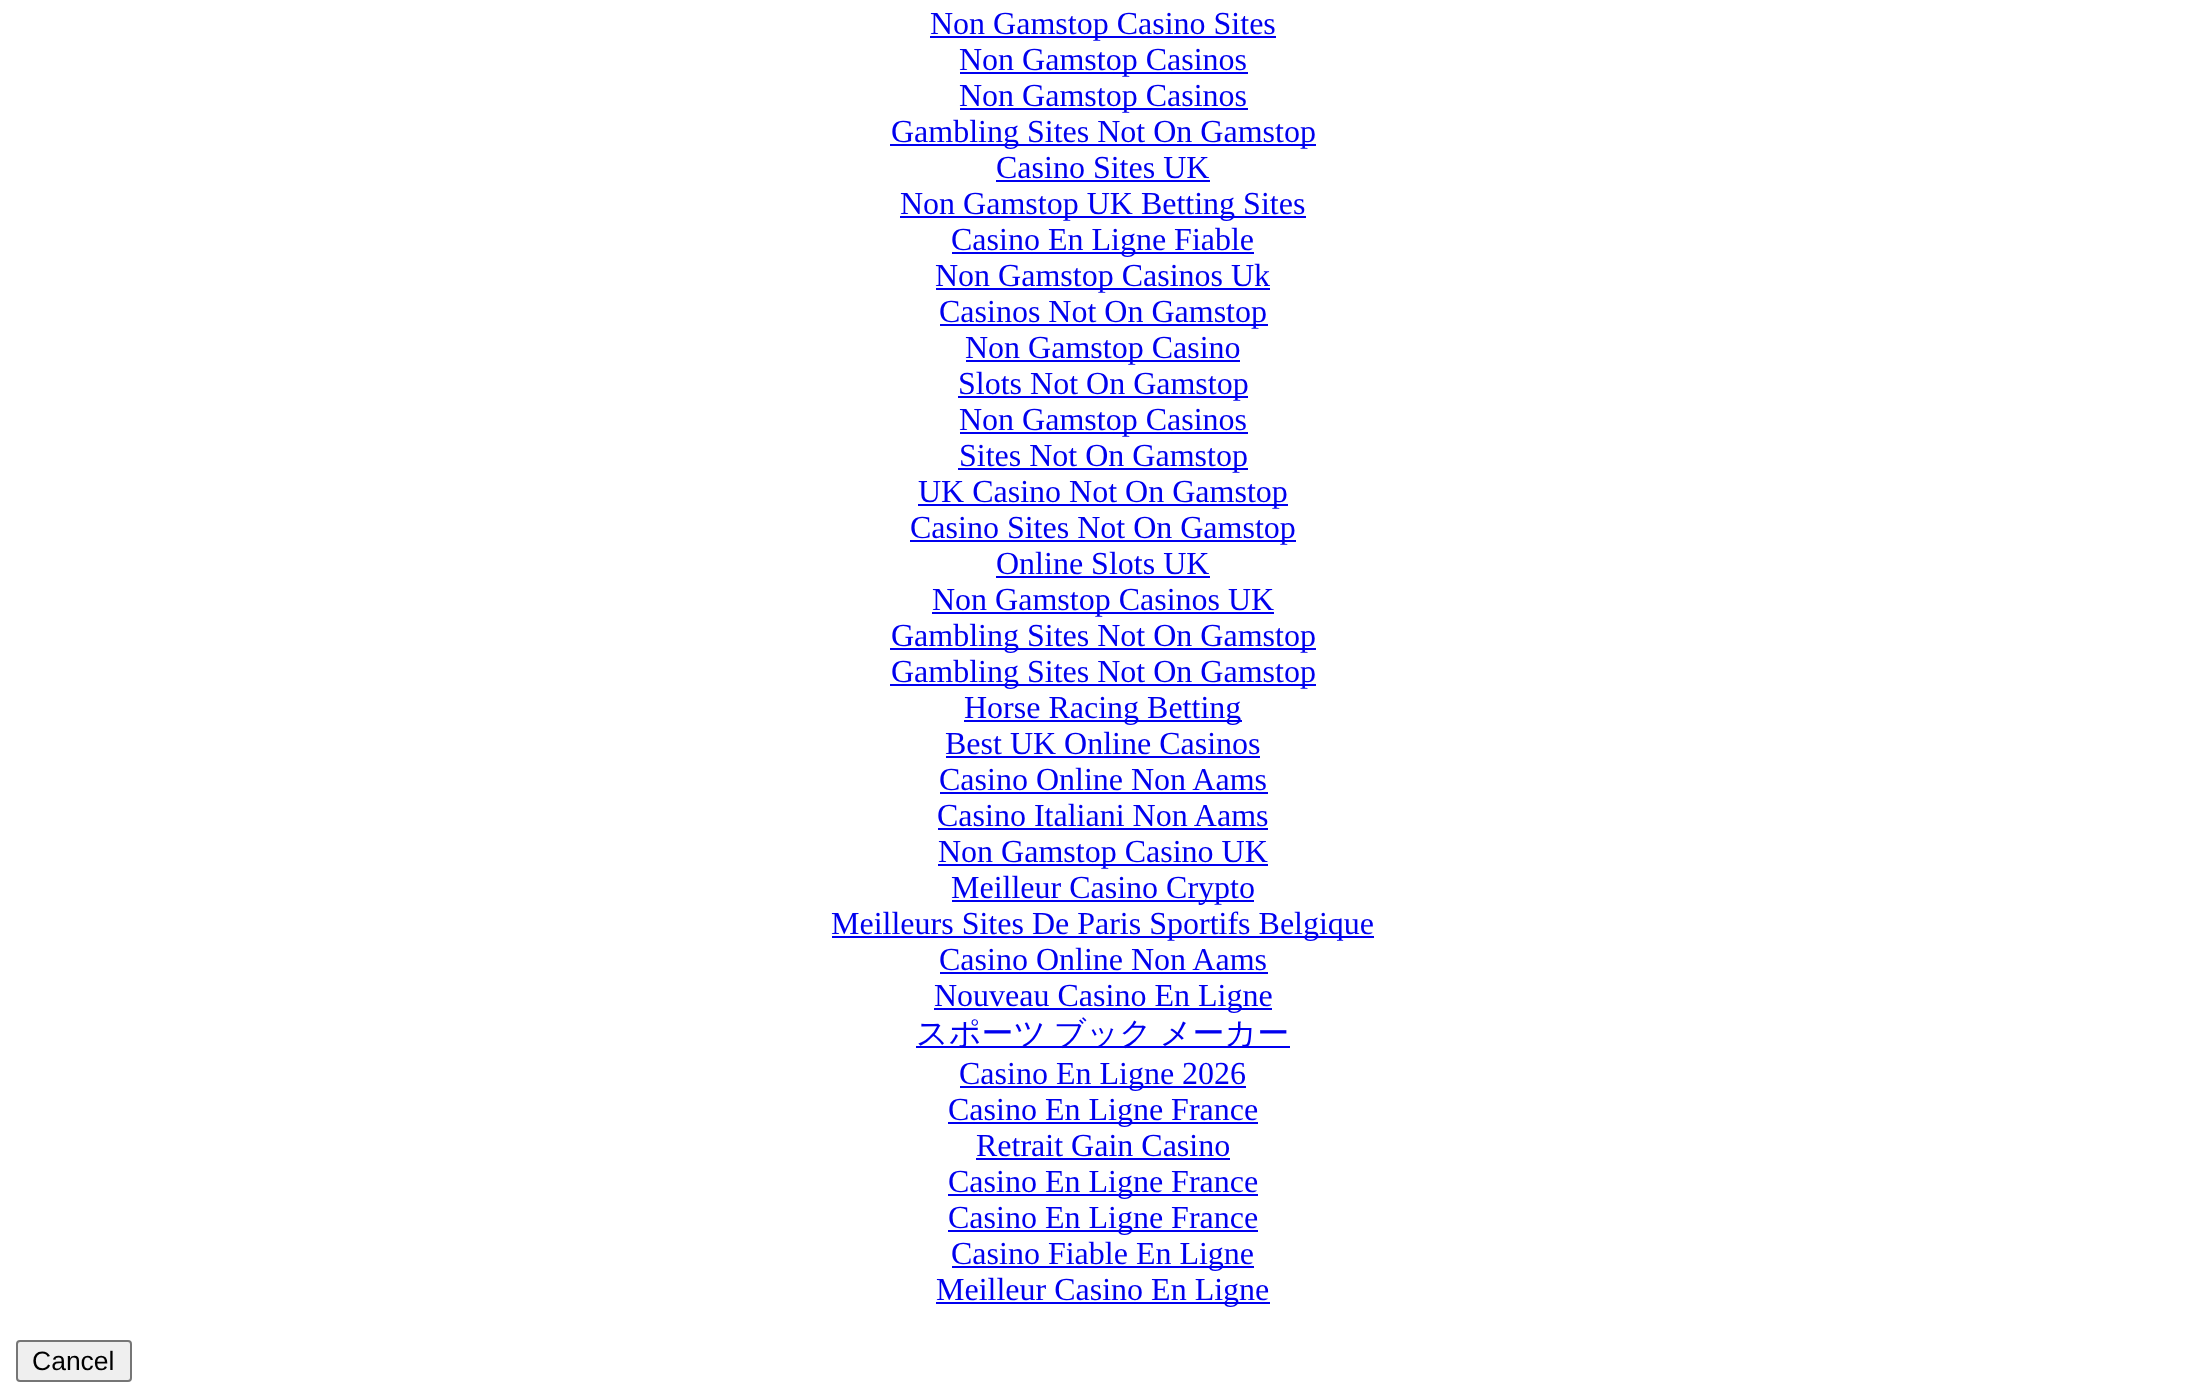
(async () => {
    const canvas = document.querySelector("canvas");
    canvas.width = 2206;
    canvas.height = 1398;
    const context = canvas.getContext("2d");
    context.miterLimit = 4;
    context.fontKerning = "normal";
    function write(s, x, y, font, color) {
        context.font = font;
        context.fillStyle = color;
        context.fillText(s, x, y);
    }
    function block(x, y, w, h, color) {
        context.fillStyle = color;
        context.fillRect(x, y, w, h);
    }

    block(0, 0, 2206, 1398, "rgb(255, 255, 255)");
    block(930, 36, 346, 2, "rgb(0, 0, 238)");
    write("Non Gamstop Casino Sites", 930, 34, "32px Liberation Serif", "rgb(0, 0, 238)");
    block(960, 72, 288, 2, "rgb(0, 0, 238)");
    write("Non Gamstop Casinos", 959, 70, "32px Liberation Serif", "rgb(0, 0, 238)");
    block(960, 108, 288, 2, "rgb(0, 0, 238)");
    write("Non Gamstop Casinos", 959, 106, "32px Liberation Serif", "rgb(0, 0, 238)");
    block(890, 144, 426, 2, "rgb(0, 0, 238)");
    write("Gambling Sites Not On Gamstop", 891, 142, "32px Liberation Serif", "rgb(0, 0, 238)");
    write("Casino Sites UK", 996, 178, "32px Liberation Serif", "rgb(0, 0, 238)");
    block(996, 180, 214, 2, "rgb(0, 0, 238)");
    block(900, 216, 406, 2, "rgb(0, 0, 238)");
    write("Non Gamstop UK Betting Sites", 900, 214, "32px Liberation Serif", "rgb(0, 0, 238)");
    block(952, 252, 302, 2, "rgb(0, 0, 238)");
    write("Casino En Ligne Fiable", 951, 250, "32px Liberation Serif", "rgb(0, 0, 238)");
    block(936, 288, 334, 2, "rgb(0, 0, 238)");
    write("Non Gamstop Casinos Uk", 935, 286, "32px Liberation Serif", "rgb(0, 0, 238)");
    block(940, 324, 328, 2, "rgb(0, 0, 238)");
    write("Casinos Not On Gamstop", 939, 322, "32px Liberation Serif", "rgb(0, 0, 238)");
    block(966, 360, 274, 2, "rgb(0, 0, 238)");
    write("Non Gamstop Casino", 965, 358, "32px Liberation Serif", "rgb(0, 0, 238)");
    block(958, 396, 290, 2, "rgb(0, 0, 238)");
    write("Slots Not On Gamstop", 958, 394, "32px Liberation Serif", "rgb(0, 0, 238)");
    block(960, 432, 288, 2, "rgb(0, 0, 238)");
    write("Non Gamstop Casinos", 959, 430, "32px Liberation Serif", "rgb(0, 0, 238)");
    block(958, 468, 290, 2, "rgb(0, 0, 238)");
    write("Sites Not On Gamstop", 959, 466, "32px Liberation Serif", "rgb(0, 0, 238)");
    block(918, 504, 370, 2, "rgb(0, 0, 238)");
    write("UK Casino Not On Gamstop", 918, 502, "32px Liberation Serif", "rgb(0, 0, 238)");
    block(910, 540, 386, 2, "rgb(0, 0, 238)");
    write("Casino Sites Not On Gamstop", 910, 538, "32px Liberation Serif", "rgb(0, 0, 238)");
    write("Online Slots UK", 996, 574, "32px Liberation Serif", "rgb(0, 0, 238)");
    block(996, 576, 214, 2, "rgb(0, 0, 238)");
    block(932, 612, 342, 2, "rgb(0, 0, 238)");
    write("Non Gamstop Casinos UK", 932, 610, "32px Liberation Serif", "rgb(0, 0, 238)");
    block(890, 648, 426, 2, "rgb(0, 0, 238)");
    write("Gambling Sites Not On Gamstop", 891, 646, "32px Liberation Serif", "rgb(0, 0, 238)");
    block(890, 684, 426, 2, "rgb(0, 0, 238)");
    write("Gambling Sites Not On Gamstop", 891, 682, "32px Liberation Serif", "rgb(0, 0, 238)");
    block(964, 720, 278, 2, "rgb(0, 0, 238)");
    write("Horse Racing Betting", 964, 718, "32px Liberation Serif", "rgb(0, 0, 238)");
    write("Best UK Online Casinos", 945, 754, "32px Liberation Serif", "rgb(0, 0, 238)");
    block(946, 756, 314, 2, "rgb(0, 0, 238)");
    write("Casino Online Non Aams", 939, 790, "32px Liberation Serif", "rgb(0, 0, 238)");
    block(940, 792, 328, 2, "rgb(0, 0, 238)");
    write("Casino Italiani Non Aams", 937, 826, "32px Liberation Serif", "rgb(0, 0, 238)");
    block(938, 828, 330, 2, "rgb(0, 0, 238)");
    block(938, 864, 330, 2, "rgb(0, 0, 238)");
    write("Non Gamstop Casino UK", 938, 862, "32px Liberation Serif", "rgb(0, 0, 238)");
    block(952, 900, 302, 2, "rgb(0, 0, 238)");
    write("Meilleur Casino Crypto", 951, 898, "32px Liberation Serif", "rgb(0, 0, 238)");
    block(832, 936, 542, 2, "rgb(0, 0, 238)");
    write("Meilleurs Sites De Paris Sportifs Belgique", 831, 934, "32px Liberation Serif", "rgb(0, 0, 238)");
    write("Casino Online Non Aams", 939, 970, "32px Liberation Serif", "rgb(0, 0, 238)");
    block(940, 972, 328, 2, "rgb(0, 0, 238)");
    block(934, 1008, 338, 2, "rgb(0, 0, 238)");
    write("Nouveau Casino En Ligne", 934, 1006, "32px Liberation Serif", "rgb(0, 0, 238)");
    block(916, 1046, 374, 2, "rgb(0, 0, 238)");
    context.wordSpacing = "-2px";
    write("スポーツ ブック メーカー", 916, 1044, "500 32px WenQuanYi Zen Hei", "rgb(0, 0, 238)");
    block(960, 1086, 286, 2, "rgb(0, 0, 238)");
    context.wordSpacing = "0px";
    write("Casino En Ligne 2026", 959, 1084, "32px Liberation Serif", "rgb(0, 0, 238)");
    block(948, 1122, 310, 2, "rgb(0, 0, 238)");
    write("Casino En Ligne France", 948, 1120, "32px Liberation Serif", "rgb(0, 0, 238)");
    write("Retrait Gain Casino", 976, 1156, "32px Liberation Serif", "rgb(0, 0, 238)");
    block(976, 1158, 254, 2, "rgb(0, 0, 238)");
    block(948, 1194, 310, 2, "rgb(0, 0, 238)");
    write("Casino En Ligne France", 948, 1192, "32px Liberation Serif", "rgb(0, 0, 238)");
    block(948, 1230, 310, 2, "rgb(0, 0, 238)");
    write("Casino En Ligne France", 948, 1228, "32px Liberation Serif", "rgb(0, 0, 238)");
    block(952, 1266, 302, 2, "rgb(0, 0, 238)");
    write("Casino Fiable En Ligne", 951, 1264, "32px Liberation Serif", "rgb(0, 0, 238)");
    block(936, 1302, 334, 2, "rgb(0, 0, 238)");
    write("Meilleur Casino En Ligne", 936, 1300, "32px Liberation Serif", "rgb(0, 0, 238)");
    context.fillStyle = "rgb(239, 239, 239)";
    context.beginPath();
    context.roundRect(17, 1341, 114, 40, 3);
    context.fill();
    context.strokeStyle = "rgb(118, 118, 118)";
    context.lineWidth = 2;
    context.stroke();
    write("Cancel", 32, 1370, "26.5px Liberation Sans", "rgb(0, 0, 0)");
})();
